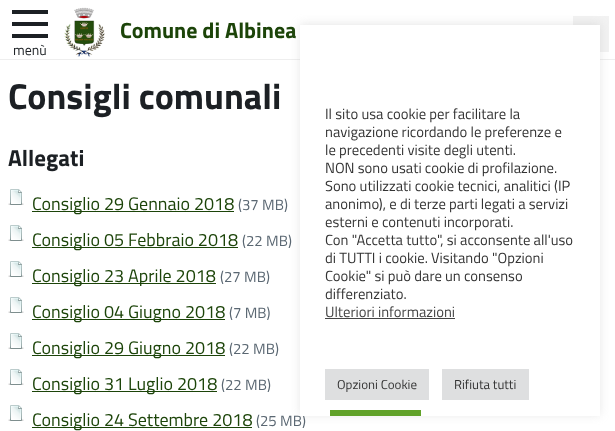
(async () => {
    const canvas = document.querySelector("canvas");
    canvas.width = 615;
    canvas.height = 431;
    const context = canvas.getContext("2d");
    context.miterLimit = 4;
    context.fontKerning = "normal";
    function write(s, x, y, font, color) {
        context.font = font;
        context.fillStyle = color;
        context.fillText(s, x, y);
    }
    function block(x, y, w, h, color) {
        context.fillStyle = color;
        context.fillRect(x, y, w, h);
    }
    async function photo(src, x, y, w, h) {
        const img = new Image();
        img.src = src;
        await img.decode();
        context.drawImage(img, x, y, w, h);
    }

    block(0, 0, 615, 431, "rgb(255, 255, 255)");
    block(0, 59, 615, 1, "rgb(238, 238, 238)");
    await photo("media/1.png", 64, 7, 41, 50);
    write("Comune di Albinea", 120, 38, "bold 22px Titillium Web", "rgb(28, 68, 9)");
    block(12, 22, 36, 4, "rgb(28, 32, 36)");
    block(12, 10, 36, 4, "rgb(28, 32, 36)");
    block(12, 34, 36, 4, "rgb(28, 32, 36)");
    write("menù", 13, 55, "14px Titillium Web", "rgb(28, 32, 36)");
    block(573, 16, 36, 36, "rgb(242, 242, 242)");
    write("Consigli comunali", 8, 109, "bold 36px Titillium Web", "rgb(28, 32, 36)");
    write("Allegati", 8, 166, "bold 23px Titillium Web", "rgb(28, 32, 36)");
    await photo("media/2.png", 8, 189, 16, 16);
    block(32, 211, 202, 1, "rgb(28, 68, 9)");
    write("Consiglio 29 Gennaio 2018", 32, 210, "18px Titillium Web", "rgb(28, 68, 9)");
    write("(37 MB)", 238, 210, "15px Titillium Web", "rgb(90, 103, 114)");
    await photo("media/2.png", 8, 225, 16, 16);
    block(32, 247, 206, 1, "rgb(28, 68, 9)");
    write("Consiglio 05 Febbraio 2018", 32, 246, "18px Titillium Web", "rgb(28, 68, 9)");
    write("(22 MB)", 242, 246, "15px Titillium Web", "rgb(90, 103, 114)");
    await photo("media/2.png", 8, 261, 16, 16);
    block(32, 283, 184, 1, "rgb(28, 68, 9)");
    write("Consiglio 23 Aprile 2018", 32, 282, "18px Titillium Web", "rgb(28, 68, 9)");
    write("(27 MB)", 220, 282, "15px Titillium Web", "rgb(90, 103, 114)");
    await photo("media/2.png", 8, 297, 16, 16);
    block(32, 319, 193, 1, "rgb(28, 68, 9)");
    write("Consiglio 04 Giugno 2018", 32, 318, "18px Titillium Web", "rgb(28, 68, 9)");
    write("(7 MB)", 229, 318, "15px Titillium Web", "rgb(90, 103, 114)");
    await photo("media/2.png", 8, 333, 16, 16);
    block(32, 355, 193, 1, "rgb(28, 68, 9)");
    write("Consiglio 29 Giugno 2018", 32, 354, "18px Titillium Web", "rgb(28, 68, 9)");
    write("(22 MB)", 229, 354, "15px Titillium Web", "rgb(90, 103, 114)");
    await photo("media/2.png", 8, 369, 16, 16);
    block(32, 391, 185, 1, "rgb(28, 68, 9)");
    write("Consiglio 31 Luglio 2018", 32, 390, "18px Titillium Web", "rgb(28, 68, 9)");
    write("(22 MB)", 221, 390, "15px Titillium Web", "rgb(90, 103, 114)");
    await photo("media/2.png", 8, 405, 16, 16);
    block(32, 427, 220, 1, "rgb(28, 68, 9)");
    write("Consiglio 24 Settembre 2018", 32, 426, "18px Titillium Web", "rgb(28, 68, 9)");
    write("(25 MB)", 256, 426, "15px Titillium Web", "rgb(90, 103, 114)");
    context.fillStyle = "rgba(172, 171, 171, 0.3)";
    context.filter = "blur(5px)";
    context.beginPath();
    context.rect(300, 24, 300, 391);
    context.fill();
    context.filter = "none";
    block(300, 25, 300, 391, "rgb(255, 255, 255)");
    write("Il sito usa cookie per facilitare la", 325, 119, "14.7px Titillium Web", "rgb(51, 51, 51)");
    write("navigazione ricordando le preferenze e", 325, 137, "14.7px Titillium Web", "rgb(51, 51, 51)");
    write("le precedenti visite degli utenti.", 325, 155, "14.7px Titillium Web", "rgb(51, 51, 51)");
    write("NON sono usati cookie di profilazione.", 325, 173, "14.7px Titillium Web", "rgb(51, 51, 51)");
    write("Sono utilizzati cookie tecnici, analitici (IP", 325, 191, "14.7px Titillium Web", "rgb(51, 51, 51)");
    write("anonimo), e di terze parti legati a servizi", 325, 209, "14.7px Titillium Web", "rgb(51, 51, 51)");
    write("esterni e contenuti incorporati.", 325, 227, "14.7px Titillium Web", "rgb(51, 51, 51)");
    write("Con \"Accetta tutto\", si acconsente all'uso", 325, 245, "14.7px Titillium Web", "rgb(51, 51, 51)");
    write("di TUTTI i cookie. Visitando \"Opzioni", 325, 263, "14.7px Titillium Web", "rgb(51, 51, 51)");
    write("Cookie\" si può dare un consenso", 325, 281, "14.7px Titillium Web", "rgb(51, 51, 51)");
    write("differenziato.", 325, 299, "14.7px Titillium Web", "rgb(51, 51, 51)");
    write("Ulteriori informazioni", 325, 317, "14.7px Titillium Web", "rgb(68, 68, 68)");
    block(325, 318, 130, 1, "rgb(68, 68, 68)");
    block(325, 369, 104, 31, "rgb(222, 223, 224)");
    write("Opzioni Cookie", 337, 389, "13px Titillium Web", "rgb(51, 51, 51)");
    block(442, 369, 87, 31, "rgb(222, 223, 224)");
    write("Rifiuta tutti", 454, 389, "13px Titillium Web", "rgb(51, 51, 51)");
    block(330, 410, 91, 6, "rgb(97, 162, 41)");
})();
